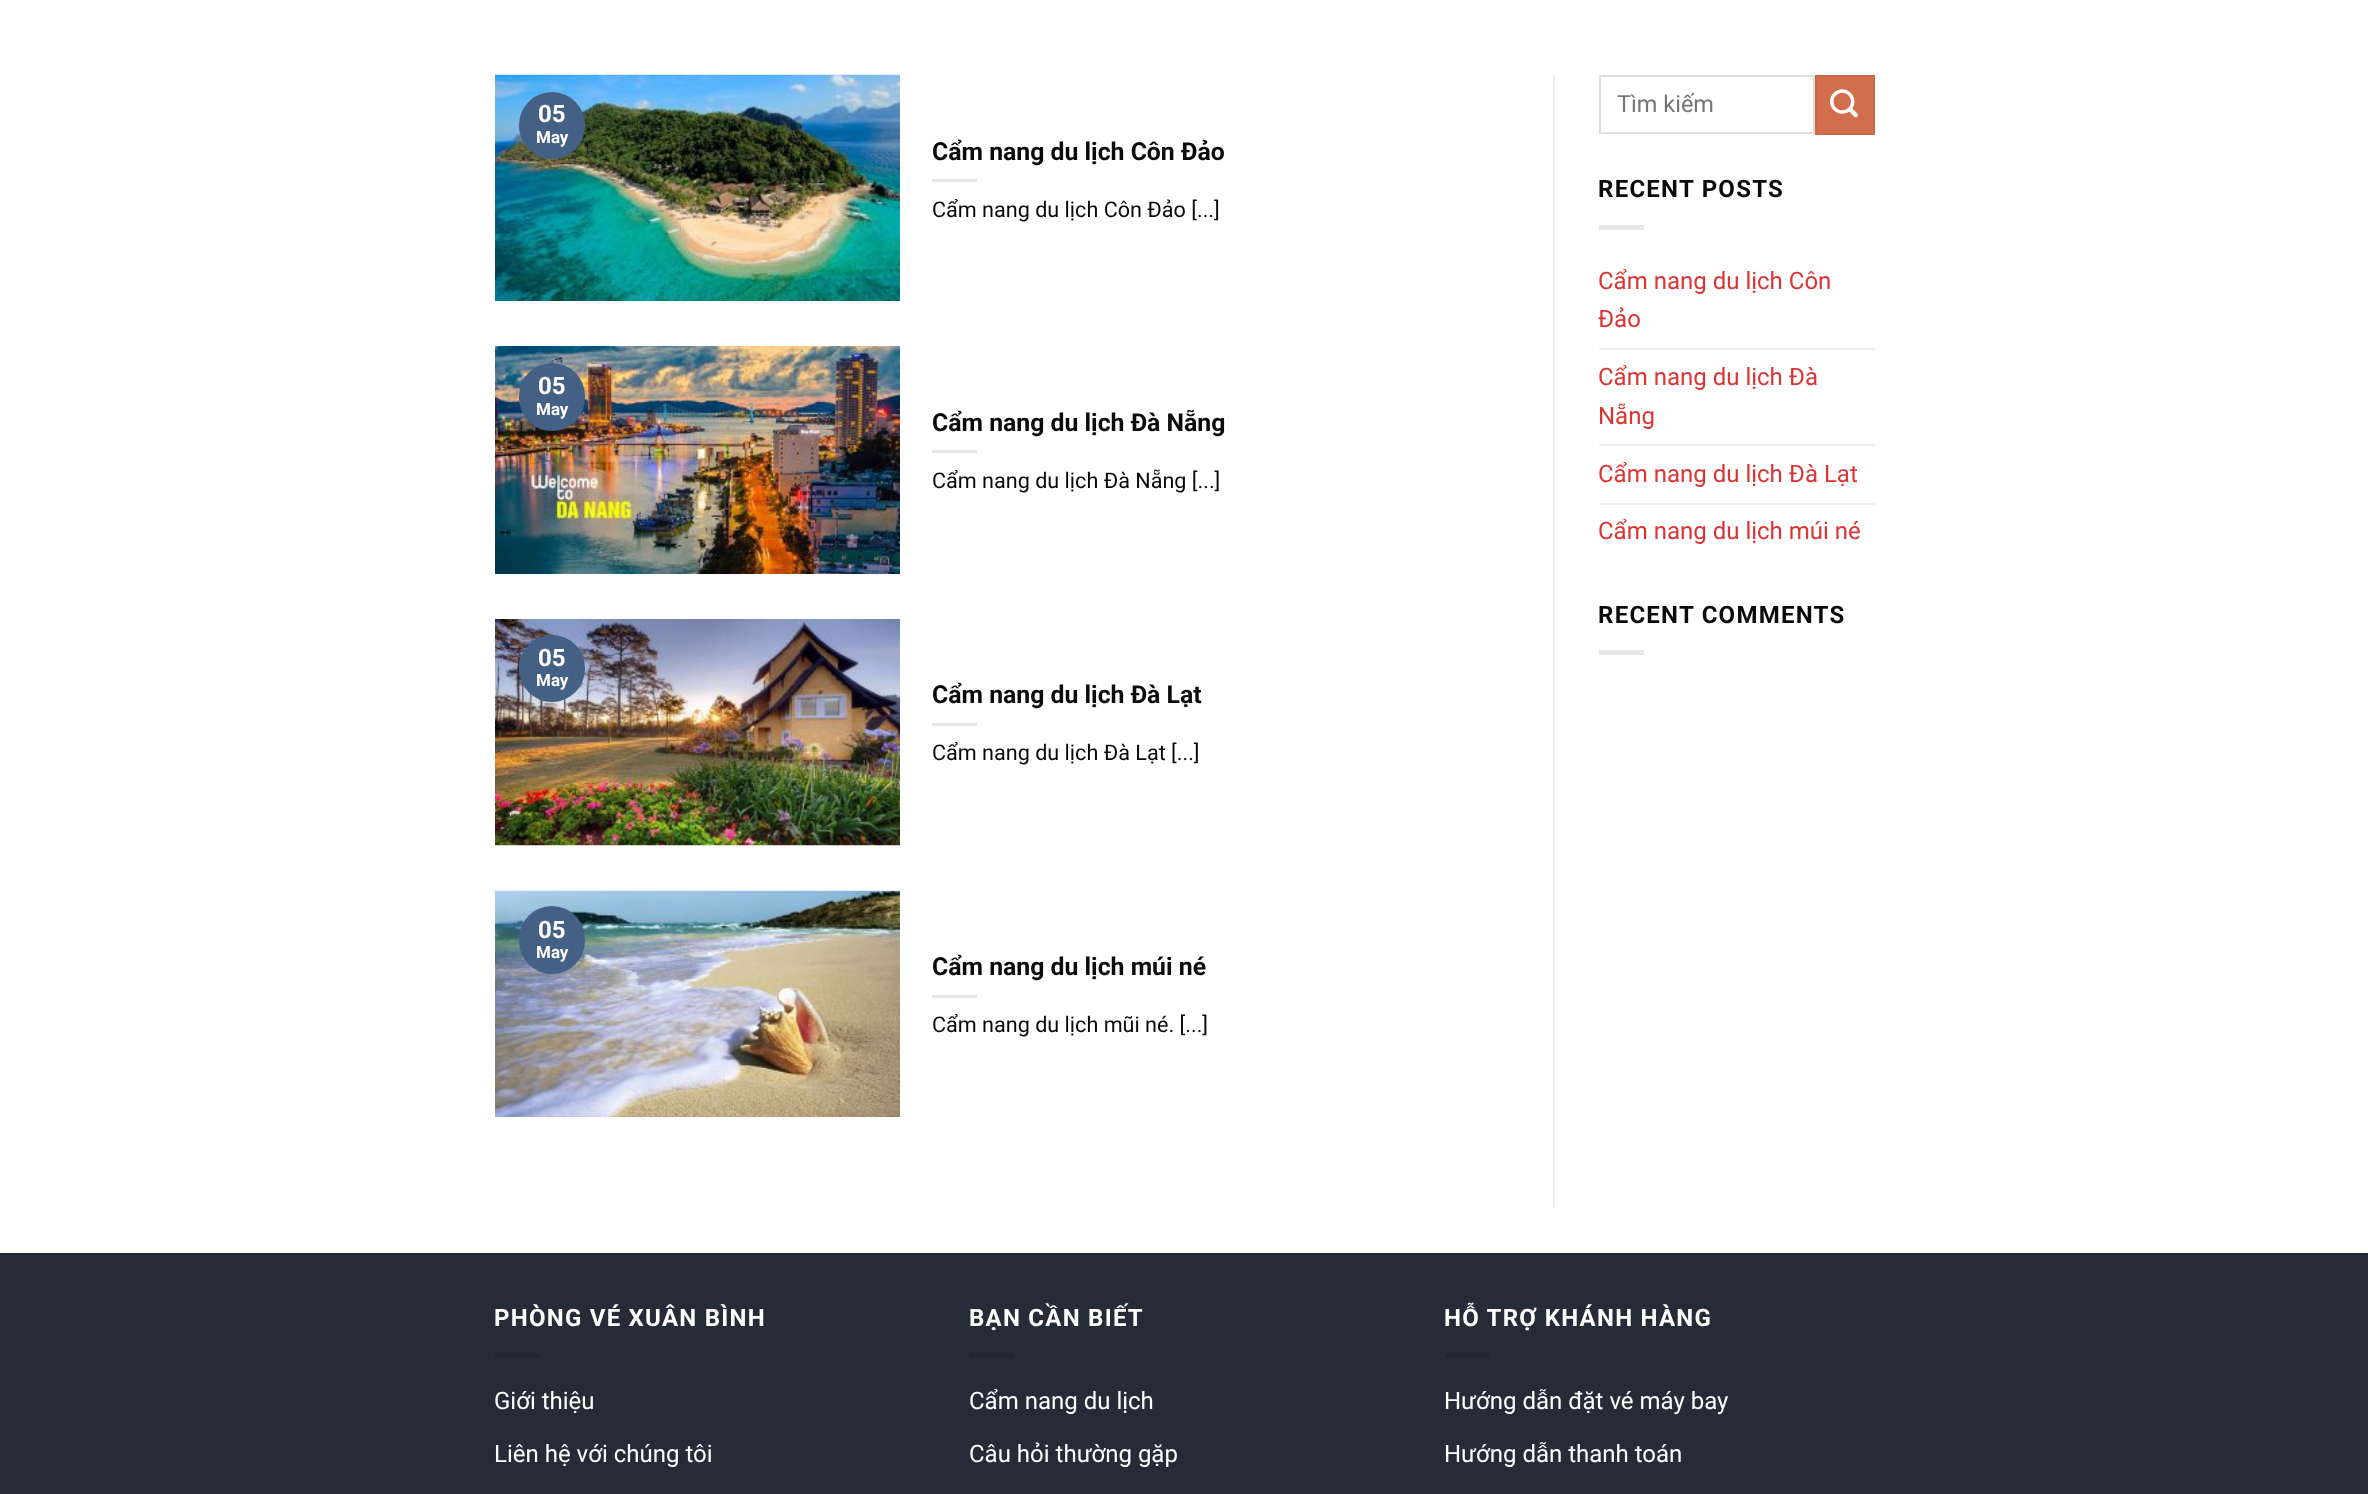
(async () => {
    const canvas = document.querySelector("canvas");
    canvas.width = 2368;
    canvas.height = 1494;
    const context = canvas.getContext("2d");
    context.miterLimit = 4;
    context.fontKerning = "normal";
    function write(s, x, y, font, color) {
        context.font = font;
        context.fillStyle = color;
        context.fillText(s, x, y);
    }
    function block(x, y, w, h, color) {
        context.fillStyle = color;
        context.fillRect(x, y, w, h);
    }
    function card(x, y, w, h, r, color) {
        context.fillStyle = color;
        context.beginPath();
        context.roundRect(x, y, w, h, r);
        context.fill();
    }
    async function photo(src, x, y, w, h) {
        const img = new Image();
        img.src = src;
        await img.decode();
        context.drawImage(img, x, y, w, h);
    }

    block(0, 0, 2368, 1494, "rgb(255, 255, 255)");
    await photo("media/1.png", 495, 74, 405, 227);
    card(519, 92, 66, 67, 33, "rgb(68, 96, 132)");
    write("05", 538, 122, "bold 24px Roboto", "rgb(255, 255, 255)");
    write("May", 536, 143, "bold 17px Roboto", "rgb(255, 255, 255)");
    write("Cẩm nang du lịch Côn Đảo", 932, 160, "bold 24.8px Roboto", "rgb(10, 10, 10)");
    block(932, 179, 45, 3, "rgb(230, 230, 230)");
    write("Cẩm nang du lịch Côn Đảo [...]", 932, 217, "21.6px Roboto", "rgb(10, 10, 10)");
    await photo("media/2.png", 495, 346, 405, 228);
    card(519, 363, 66, 68, 33, "rgb(68, 96, 132)");
    write("05", 538, 394, "bold 24px Roboto", "rgb(255, 255, 255)");
    write("May", 536, 415, "bold 17px Roboto", "rgb(255, 255, 255)");
    write("Cẩm nang du lịch Đà Nẵng", 932, 431, "bold 24.8px Roboto", "rgb(10, 10, 10)");
    block(932, 450, 45, 3, "rgb(230, 230, 230)");
    write("Cẩm nang du lịch Đà Nẵng [...]", 932, 488, "21.6px Roboto", "rgb(10, 10, 10)");
    await photo("media/3.png", 495, 619, 405, 227);
    card(519, 635, 66, 67, 33, "rgb(68, 96, 132)");
    write("05", 538, 666, "bold 24px Roboto", "rgb(255, 255, 255)");
    write("May", 536, 686, "bold 17px Roboto", "rgb(255, 255, 255)");
    write("Cẩm nang du lịch Đà Lạt", 932, 703, "bold 24.8px Roboto", "rgb(10, 10, 10)");
    block(932, 723, 45, 3, "rgb(230, 230, 230)");
    write("Cẩm nang du lịch Đà Lạt [...]", 932, 760, "21.6px Roboto", "rgb(10, 10, 10)");
    await photo("media/4.png", 495, 890, 405, 227);
    card(519, 906, 66, 68, 33, "rgb(68, 96, 132)");
    write("05", 538, 938, "bold 24px Roboto", "rgb(255, 255, 255)");
    write("May", 536, 958, "bold 17px Roboto", "rgb(255, 255, 255)");
    write("Cẩm nang du lịch múi né", 932, 975, "bold 24.8px Roboto", "rgb(10, 10, 10)");
    block(932, 995, 45, 3, "rgb(230, 230, 230)");
    write("Cẩm nang du lịch mũi né. [...]", 932, 1032, "21.6px Roboto", "rgb(10, 10, 10)");
    block(1553, 75, 2, 1133, "rgb(236, 236, 236)");
    context.strokeStyle = "rgb(221, 221, 221)";
    context.lineWidth = 2;
    context.strokeRect(1600, 76, 214, 57);
    write("Tìm kiếm", 1617, 112, "23.5px Roboto", "rgb(117, 117, 117)");
    context.fillStyle = "rgb(210, 110, 75)";
    context.beginPath();
    context.rect(1816, 76, 58, 58);
    context.fill();
    context.strokeStyle = "rgb(200, 105, 71)";
    context.stroke();
    await photo("media/5.png", 1830, 89, 28, 29);
    context.letterSpacing = "1.25px";
    write("RECENT POSTS", 1598, 197, "bold 24px Roboto", "rgb(10, 10, 10)");
    block(1599, 225, 45, 5, "rgb(230, 230, 230)");
    context.letterSpacing = "0px";
    write("Cẩm nang du lịch Côn", 1598, 289, "24px Roboto", "rgb(221, 51, 51)");
    write("Đảo", 1598, 327, "24px Roboto", "rgb(221, 51, 51)");
    block(1599, 348, 276, 2, "rgb(236, 236, 236)");
    write("Cẩm nang du lịch Đà", 1598, 385, "24px Roboto", "rgb(221, 51, 51)");
    write("Nẵng", 1598, 424, "24px Roboto", "rgb(221, 51, 51)");
    block(1599, 444, 276, 2, "rgb(236, 236, 236)");
    write("Cẩm nang du lịch Đà Lạt", 1598, 482, "24px Roboto", "rgb(221, 51, 51)");
    block(1599, 503, 276, 2, "rgb(236, 236, 236)");
    write("Cẩm nang du lịch múi né", 1598, 539, "24px Roboto", "rgb(221, 51, 51)");
    context.letterSpacing = "1.25px";
    write("RECENT COMMENTS", 1598, 623, "bold 24px Roboto", "rgb(10, 10, 10)");
    block(1599, 650, 45, 5, "rgb(230, 230, 230)");
    block(0, 1255, 2368, 239, "rgb(37, 43, 55)");
    block(0, 1253, 2368, 2, "rgb(35, 41, 52)");
    write("PHÒNG VÉ XUÂN BÌNH", 494, 1326, "bold 24px Roboto", "rgb(255, 255, 255)");
    block(495, 1353, 45, 5, "rgb(33, 39, 50)");
    context.letterSpacing = "0px";
    write("Giới thiệu", 494, 1409, "24px Roboto", "rgb(255, 255, 255)");
    write("Liên hệ với chúng tôi", 494, 1462, "24px Roboto", "rgb(255, 255, 255)");
    context.letterSpacing = "1.25px";
    write("BẠN CẦN BIẾT", 969, 1326, "bold 24px Roboto", "rgb(255, 255, 255)");
    block(969, 1353, 45, 5, "rgb(33, 39, 50)");
    context.letterSpacing = "0px";
    write("Cẩm nang du lịch", 969, 1409, "24px Roboto", "rgb(255, 255, 255)");
    write("Câu hỏi thường gặp", 969, 1462, "24px Roboto", "rgb(255, 255, 255)");
    context.letterSpacing = "1.25px";
    write("HỖ TRỢ KHÁNH HÀNG", 1444, 1326, "bold 24px Roboto", "rgb(255, 255, 255)");
    block(1445, 1353, 45, 5, "rgb(33, 39, 50)");
    context.letterSpacing = "0px";
    write("Hướng dẫn đặt vé máy bay", 1444, 1409, "24px Roboto", "rgb(255, 255, 255)");
    write("Hướng dẫn thanh toán", 1444, 1462, "24px Roboto", "rgb(255, 255, 255)");
})();
